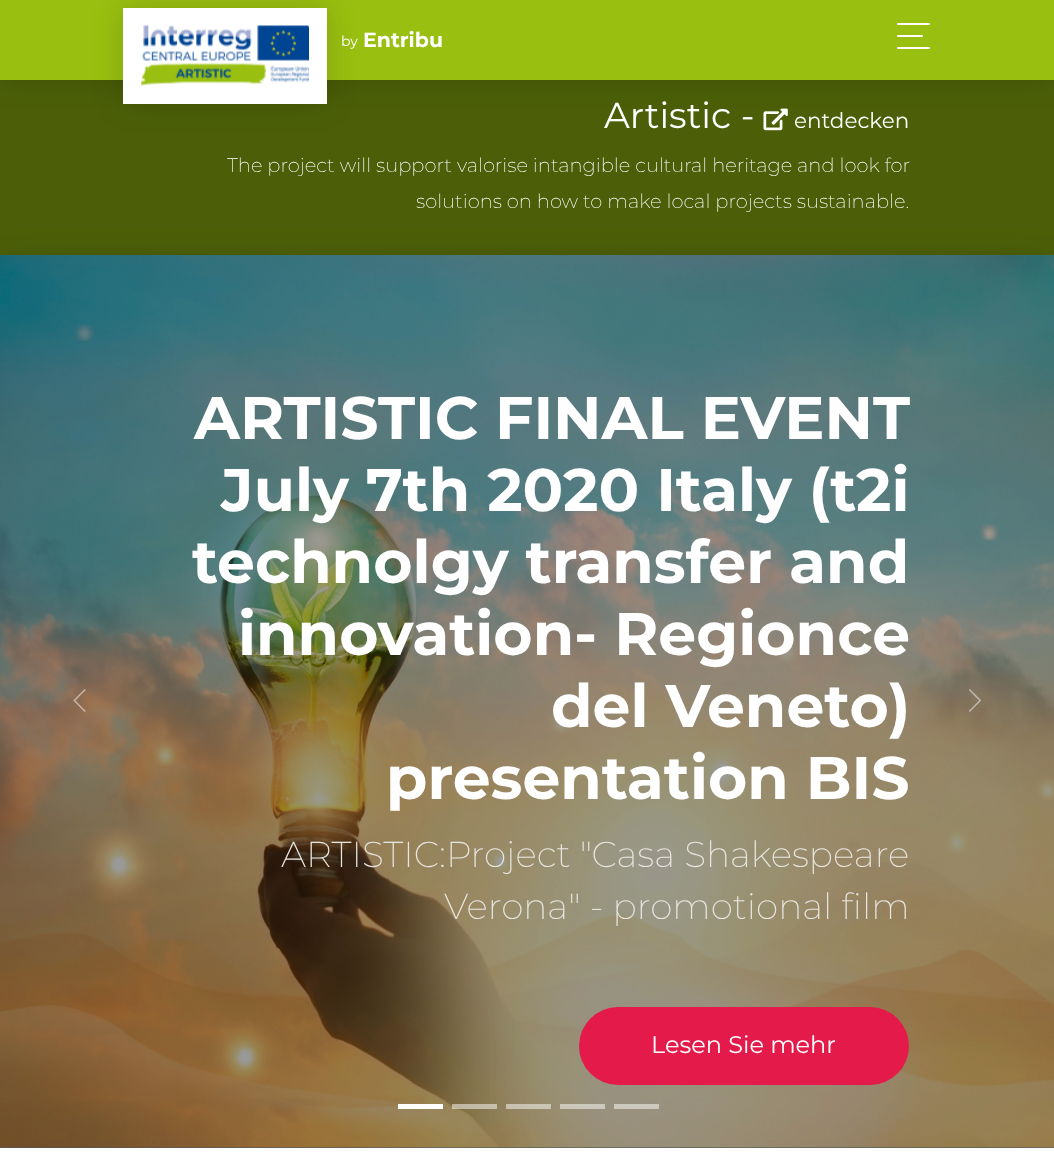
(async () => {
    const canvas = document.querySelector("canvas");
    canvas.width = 1054;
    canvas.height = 1159;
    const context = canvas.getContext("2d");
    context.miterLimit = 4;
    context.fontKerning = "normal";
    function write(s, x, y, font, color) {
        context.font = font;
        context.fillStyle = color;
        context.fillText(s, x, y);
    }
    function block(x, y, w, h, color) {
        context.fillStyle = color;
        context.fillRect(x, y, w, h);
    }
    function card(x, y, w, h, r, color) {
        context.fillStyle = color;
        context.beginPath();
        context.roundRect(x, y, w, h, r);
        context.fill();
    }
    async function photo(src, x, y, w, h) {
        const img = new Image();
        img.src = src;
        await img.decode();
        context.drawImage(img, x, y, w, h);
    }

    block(0, 0, 1054, 1159, "rgb(255, 255, 255)");
    block(0, 80, 1054, 175, "rgb(153, 191, 16)");
    context.fillStyle = "rgba(0, 0, 0, 0.3)";
    context.filter = "blur(19px)";
    context.beginPath();
    context.rect(0, 270, 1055, 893);
    context.fill();
    context.filter = "none";
    block(0, 80, 1054, 175, "rgba(0, 0, 0, 0.5)");
    await photo("media/2.png", 763, 108, 25, 23);
    context.fillStyle = "rgba(0, 0, 0, 0.15)";
    context.filter = "blur(15px)";
    context.beginPath();
    context.rect(0, 0, 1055, 80);
    context.fill();
    context.filter = "none";
    block(0, 0, 1054, 80, "rgb(153, 191, 16)");
    context.fillStyle = "rgba(0, 0, 0, 0.15)";
    context.filter = "blur(15px)";
    context.beginPath();
    context.rect(123, 8, 204, 96);
    context.fill();
    context.filter = "none";
    block(123, 8, 204, 96, "rgb(255, 255, 255)");
    await photo("media/1.png", 141, 25, 168, 61);
    write("by", 341, 46, "14px Montserrat", "rgb(255, 255, 255)");
    write("Entribu", 363, 47, "bold 20.5px Montserrat", "rgb(255, 255, 255)");
    card(897, 23, 33, 2, 1, "rgb(255, 255, 255)");
    card(897, 35, 26, 2, 1, "rgb(255, 255, 255)");
    card(897, 47, 33, 2, 1, "rgb(255, 255, 255)");
    write("Artistic -", 604, 128, "36px Montserrat", "rgb(255, 255, 255)");
    write("entdecken", 794, 128, "21.5px Montserrat", "rgb(255, 255, 255)");
    write("The project will support valorise intangible cultural heritage and look for", 227, 172, "200 19.5px Montserrat", "rgb(255, 255, 255)");
    write("solutions on how to make local projects sustainable.", 416, 208, "200 19.5px Montserrat", "rgb(255, 255, 255)");
    block(0, 1147, 1054, 1, "rgba(0, 0, 0, 0.3)");
    await photo("media/4.png", 0, 255, 1054, 893);
    block(0, 255, 1054, 893, "rgba(0, 0, 0, 0.4)");
    await photo("media/3.png", 73, 689, 13, 23);
    write("ARTISTIC FINAL EVENT", 194, 439, "bold 60px Montserrat", "rgb(255, 255, 255)");
    write("July 7th 2020 Italy (t2i", 221, 511, "bold 60px Montserrat", "rgb(255, 255, 255)");
    write("technolgy transfer and", 192, 583, "bold 60px Montserrat", "rgb(255, 255, 255)");
    write("innovation- Regionce", 238, 655, "bold 60px Montserrat", "rgb(255, 255, 255)");
    write("del Veneto)", 551, 727, "bold 60px Montserrat", "rgb(255, 255, 255)");
    write("presentation BIS", 386, 799, "bold 60px Montserrat", "rgb(255, 255, 255)");
    write("ARTISTIC:Project \"Casa Shakespeare", 281, 867, "200 36px Montserrat", "rgb(232, 230, 224)");
    write("Verona\" - promotional film", 444, 919, "200 36px Montserrat", "rgb(232, 230, 224)");
    card(579, 1007, 330, 78, 39, "rgb(228, 26, 74)");
    write("Lesen Sie mehr", 651, 1053, "24px Montserrat", "rgb(255, 255, 255)");
    await photo("media/5.png", 969, 689, 12, 23);
    block(398, 1104, 45, 5, "rgb(255, 255, 255)");
    block(452, 1104, 45, 5, "rgba(255, 255, 255, 0.5)");
    block(506, 1104, 45, 5, "rgba(255, 255, 255, 0.5)");
    block(560, 1104, 45, 5, "rgba(255, 255, 255, 0.5)");
    block(614, 1104, 45, 5, "rgba(255, 255, 255, 0.5)");
    block(0, 1148, 1054, 11, "rgb(255, 255, 255)");
})();
